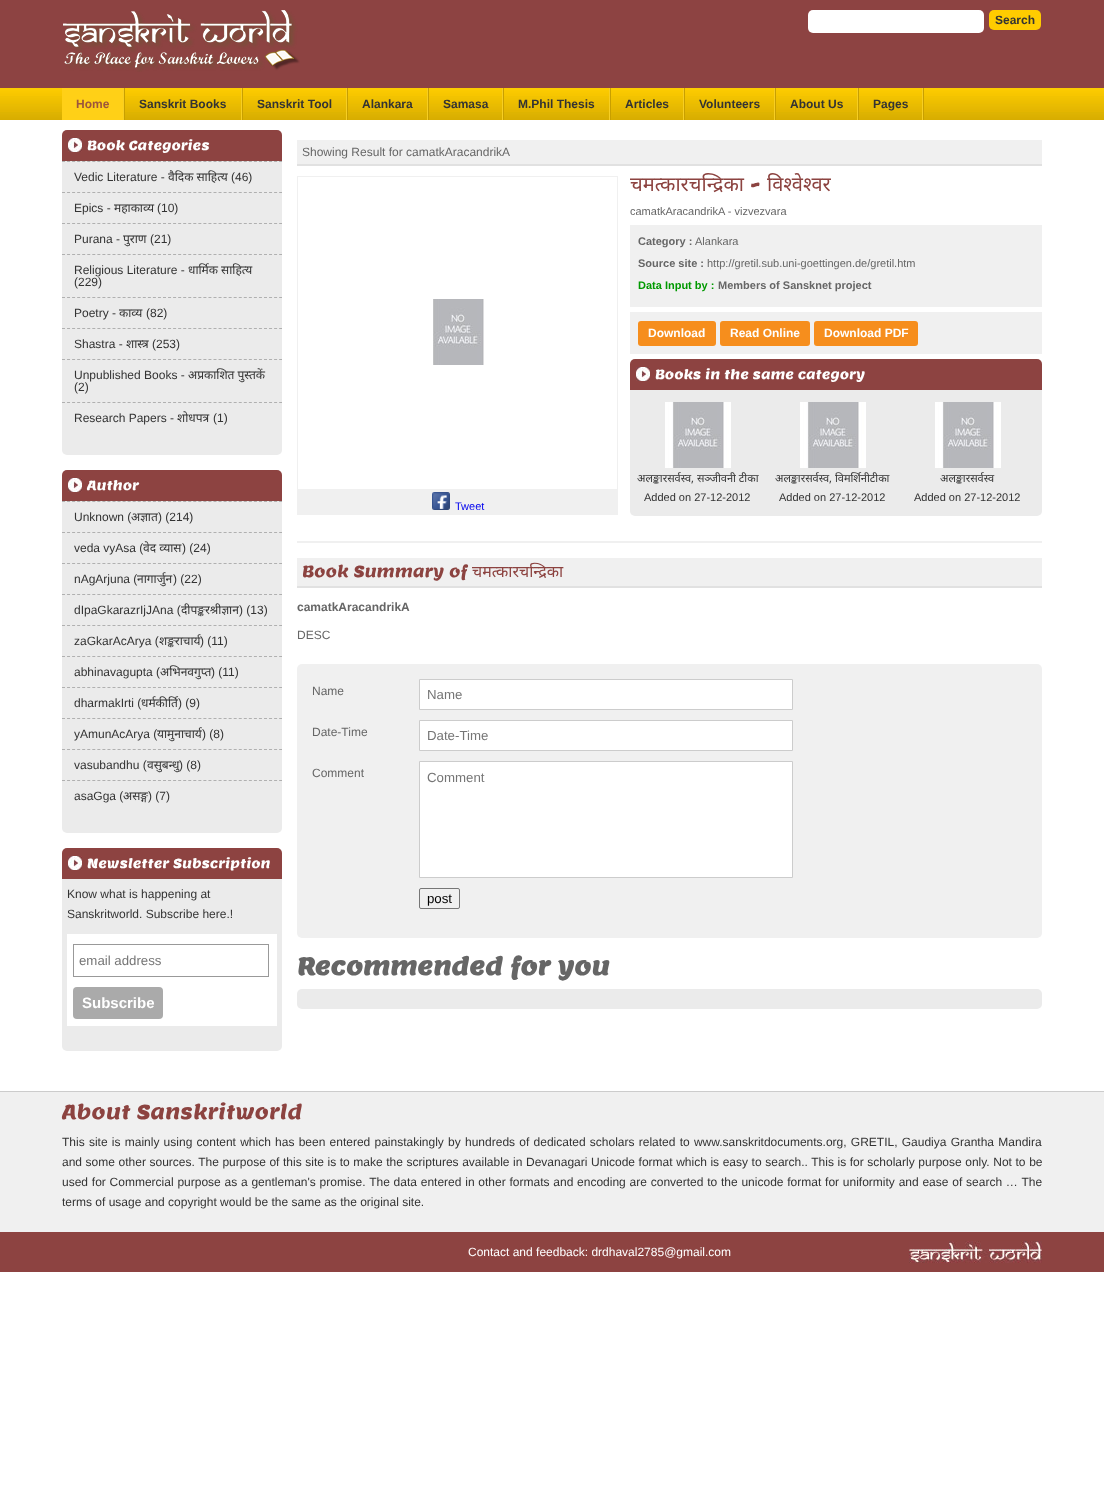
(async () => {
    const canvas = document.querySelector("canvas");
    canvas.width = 1104;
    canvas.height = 1495;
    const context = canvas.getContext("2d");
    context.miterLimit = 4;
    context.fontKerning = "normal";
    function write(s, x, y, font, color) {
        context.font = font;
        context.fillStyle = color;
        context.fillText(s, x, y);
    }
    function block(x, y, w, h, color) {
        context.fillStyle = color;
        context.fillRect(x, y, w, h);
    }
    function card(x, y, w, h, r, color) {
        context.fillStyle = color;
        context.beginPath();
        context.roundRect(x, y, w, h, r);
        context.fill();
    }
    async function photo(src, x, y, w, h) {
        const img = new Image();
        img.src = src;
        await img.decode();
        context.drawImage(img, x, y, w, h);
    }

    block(0, 0, 1104, 1495, "rgb(255, 255, 255)");
    await photo("media/1.png", 0, 0, 1104, 120);
    await photo("media/2.png", 63, 10, 237, 62);
    card(808, 10, 176, 23, 5, "rgb(255, 255, 255)");
    card(989, 10, 52, 20, 5, "rgb(255, 204, 0)");
    write("Search", 995, 24, "bold 12px Liberation Sans", "rgb(51, 51, 51)");
    await photo("media/3.png", 123, 88, 2, 32);
    block(62, 88, 61, 32, "rgb(255, 208, 23)");
    write("Home", 76, 108, "bold 12px Liberation Sans", "rgb(156, 85, 60)");
    await photo("media/3.png", 241, 88, 2, 32);
    write("Sanskrit Books", 139, 108, "bold 12px Liberation Sans", "rgb(51, 51, 51)");
    await photo("media/3.png", 346, 88, 2, 32);
    write("Sanskrit Tool", 257, 108, "bold 12px Liberation Sans", "rgb(51, 51, 51)");
    await photo("media/3.png", 427, 88, 2, 32);
    write("Alankara", 362, 108, "bold 12px Liberation Sans", "rgb(51, 51, 51)");
    await photo("media/3.png", 502, 88, 2, 32);
    write("Samasa", 443, 108, "bold 12px Liberation Sans", "rgb(51, 51, 51)");
    await photo("media/3.png", 609, 88, 2, 32);
    write("M.Phil Thesis", 518, 108, "bold 12px Liberation Sans", "rgb(51, 51, 51)");
    await photo("media/3.png", 683, 88, 2, 32);
    write("Articles", 625, 108, "bold 12px Liberation Sans", "rgb(51, 51, 51)");
    await photo("media/3.png", 774, 88, 2, 32);
    write("Volunteers", 699, 108, "bold 12px Liberation Sans", "rgb(51, 51, 51)");
    await photo("media/3.png", 857, 88, 2, 32);
    write("About Us", 790, 108, "bold 12px Liberation Sans", "rgb(51, 51, 51)");
    await photo("media/3.png", 922, 88, 2, 32);
    write("Pages", 873, 108, "bold 12px Liberation Sans", "rgb(51, 51, 51)");
    context.fillStyle = "rgb(141, 67, 65)";
    context.beginPath();
    context.roundRect(62, 130, 220, 31, [5, 5, 0, 0]);
    context.fill();
    await photo("media/4.png", 68, 138, 14, 14);
    write("Book Categories", 87, 150, "13px Lemon", "rgb(255, 255, 255)");
    context.fillStyle = "rgb(235, 235, 235)";
    context.beginPath();
    context.roundRect(62, 161, 220, 294, [0, 0, 5, 5]);
    context.fill();
    context.beginPath();
    context.moveTo(62, 161.5);
    context.lineTo(282, 161.5);
    context.strokeStyle = "rgb(176, 176, 176)";
    context.setLineDash([3, 2.05]);
    context.stroke();
    write("Vedic Literature -", 74, 181, "12px Liberation Sans", "rgb(51, 51, 51)");
    write("वैदिक साहित्य", 168, 181, "12px Noto Sans", "rgb(51, 51, 51)");
    write("(46)", 231, 181, "12px Liberation Sans", "rgb(51, 51, 51)");
    context.beginPath();
    context.moveTo(62, 192.5);
    context.lineTo(282, 192.5);
    context.stroke();
    write("Epics -", 74, 212, "12px Liberation Sans", "rgb(51, 51, 51)");
    write("महाकाव्य", 114, 212, "12px Noto Sans", "rgb(51, 51, 51)");
    write("(10)", 157, 212, "12px Liberation Sans", "rgb(51, 51, 51)");
    context.beginPath();
    context.moveTo(62, 223.5);
    context.lineTo(282, 223.5);
    context.stroke();
    write("Purana -", 74, 243, "12px Liberation Sans", "rgb(51, 51, 51)");
    write("पुराण", 123, 243, "12px Noto Sans", "rgb(51, 51, 51)");
    write("(21)", 150, 243, "12px Liberation Sans", "rgb(51, 51, 51)");
    context.beginPath();
    context.moveTo(62, 254.5);
    context.lineTo(282, 254.5);
    context.stroke();
    write("Religious Literature -", 74, 274, "12px Liberation Sans", "rgb(51, 51, 51)");
    write("धार्मिक साहित्य", 188, 274, "12px Noto Sans", "rgb(51, 51, 51)");
    write("(229)", 74, 286, "12px Liberation Sans", "rgb(51, 51, 51)");
    context.beginPath();
    context.moveTo(62, 297.5);
    context.lineTo(282, 297.5);
    context.stroke();
    write("Poetry -", 74, 317, "12px Liberation Sans", "rgb(51, 51, 51)");
    write("काव्य", 119, 317, "12px Noto Sans", "rgb(51, 51, 51)");
    write("(82)", 146, 317, "12px Liberation Sans", "rgb(51, 51, 51)");
    context.beginPath();
    context.moveTo(62, 328.5);
    context.lineTo(282, 328.5);
    context.stroke();
    write("Shastra -", 74, 348, "12px Liberation Sans", "rgb(51, 51, 51)");
    write("शास्त्र", 126, 348, "12px Noto Sans", "rgb(51, 51, 51)");
    write("(253)", 152, 348, "12px Liberation Sans", "rgb(51, 51, 51)");
    context.beginPath();
    context.moveTo(62, 359.5);
    context.lineTo(282, 359.5);
    context.stroke();
    write("Unpublished Books -", 74, 379, "12px Liberation Sans", "rgb(51, 51, 51)");
    write("अप्रकाशित पुस्तकें", 188, 379, "12px Noto Sans", "rgb(51, 51, 51)");
    write("(2)", 74, 391, "12px Liberation Sans", "rgb(51, 51, 51)");
    context.beginPath();
    context.moveTo(62, 402.5);
    context.lineTo(282, 402.5);
    context.stroke();
    write("Research Papers -", 74, 422, "12px Liberation Sans", "rgb(51, 51, 51)");
    write("शोधपत्र", 177, 422, "12px Noto Sans", "rgb(51, 51, 51)");
    write("(1)", 213, 422, "12px Liberation Sans", "rgb(51, 51, 51)");
    context.fillStyle = "rgb(141, 67, 65)";
    context.beginPath();
    context.roundRect(62, 470, 220, 31, [5, 5, 0, 0]);
    context.fill();
    await photo("media/4.png", 68, 478, 14, 14);
    write("Author", 87, 490, "13px Lemon", "rgb(255, 255, 255)");
    context.fillStyle = "rgb(235, 235, 235)";
    context.beginPath();
    context.roundRect(62, 501, 220, 332, [0, 0, 5, 5]);
    context.fill();
    context.beginPath();
    context.moveTo(62, 501.5);
    context.lineTo(282, 501.5);
    context.stroke();
    write("Unknown (", 74, 521, "12px Liberation Sans", "rgb(51, 51, 51)");
    write("अज्ञात", 131, 521, "12px Noto Sans", "rgb(51, 51, 51)");
    write(") (214)", 158, 521, "12px Liberation Sans", "rgb(51, 51, 51)");
    context.beginPath();
    context.moveTo(62, 532.5);
    context.lineTo(282, 532.5);
    context.stroke();
    write("veda vyAsa (", 74, 552, "12px Liberation Sans", "rgb(51, 51, 51)");
    write("वेद व्यास", 143, 552, "12px Noto Sans", "rgb(51, 51, 51)");
    write(") (24)", 182, 552, "12px Liberation Sans", "rgb(51, 51, 51)");
    context.beginPath();
    context.moveTo(62, 563.5);
    context.lineTo(282, 563.5);
    context.stroke();
    write("nAgArjuna (", 74, 583, "12px Liberation Sans", "rgb(51, 51, 51)");
    write("नागार्जुन", 137, 583, "12px Noto Sans", "rgb(51, 51, 51)");
    write(") (22)", 173, 583, "12px Liberation Sans", "rgb(51, 51, 51)");
    context.beginPath();
    context.moveTo(62, 594.5);
    context.lineTo(282, 594.5);
    context.stroke();
    write("dIpaGkarazrIjJAna (", 74, 614, "12px Liberation Sans", "rgb(51, 51, 51)");
    write("दीपङ्करश्रीज्ञान", 181, 614, "12px Noto Sans", "rgb(51, 51, 51)");
    write(") (13)", 239, 614, "12px Liberation Sans", "rgb(51, 51, 51)");
    context.beginPath();
    context.moveTo(62, 625.5);
    context.lineTo(282, 625.5);
    context.stroke();
    write("zaGkarAcArya (", 74, 645, "12px Liberation Sans", "rgb(51, 51, 51)");
    write("शङ्कराचार्य", 159, 645, "12px Noto Sans", "rgb(51, 51, 51)");
    write(") (11)", 200, 645, "12px Liberation Sans", "rgb(51, 51, 51)");
    context.beginPath();
    context.moveTo(62, 656.5);
    context.lineTo(282, 656.5);
    context.stroke();
    write("abhinavagupta (", 74, 676, "12px Liberation Sans", "rgb(51, 51, 51)");
    write("अभिनवगुप्त", 160, 676, "12px Noto Sans", "rgb(51, 51, 51)");
    write(") (11)", 211, 676, "12px Liberation Sans", "rgb(51, 51, 51)");
    context.beginPath();
    context.moveTo(62, 687.5);
    context.lineTo(282, 687.5);
    context.stroke();
    write("dharmakIrti (", 74, 707, "12px Liberation Sans", "rgb(51, 51, 51)");
    write("धर्मकीर्ति", 141, 707, "12px Noto Sans", "rgb(51, 51, 51)");
    write(") (9)", 178, 707, "12px Liberation Sans", "rgb(51, 51, 51)");
    context.beginPath();
    context.moveTo(62, 718.5);
    context.lineTo(282, 718.5);
    context.stroke();
    write("yAmunAcArya (", 74, 738, "12px Liberation Sans", "rgb(51, 51, 51)");
    write("यामुनाचार्य", 157, 738, "12px Noto Sans", "rgb(51, 51, 51)");
    write(") (8)", 202, 738, "12px Liberation Sans", "rgb(51, 51, 51)");
    context.beginPath();
    context.moveTo(62, 749.5);
    context.lineTo(282, 749.5);
    context.stroke();
    write("vasubandhu (", 74, 769, "12px Liberation Sans", "rgb(51, 51, 51)");
    write("वसुबन्धु", 147, 769, "12px Noto Sans", "rgb(51, 51, 51)");
    write(") (8)", 179, 769, "12px Liberation Sans", "rgb(51, 51, 51)");
    context.beginPath();
    context.moveTo(62, 780.5);
    context.lineTo(282, 780.5);
    context.stroke();
    write("asaGga (", 74, 800, "12px Liberation Sans", "rgb(51, 51, 51)");
    write("असङ्ग", 123, 800, "12px Noto Sans", "rgb(51, 51, 51)");
    write(") (7)", 148, 800, "12px Liberation Sans", "rgb(51, 51, 51)");
    context.fillStyle = "rgb(141, 67, 65)";
    context.beginPath();
    context.roundRect(62, 848, 220, 31, [5, 5, 0, 0]);
    context.fill();
    await photo("media/4.png", 68, 856, 14, 14);
    write("Newsletter Subscription", 87, 868, "13px Lemon", "rgb(255, 255, 255)");
    context.fillStyle = "rgb(235, 235, 235)";
    context.beginPath();
    context.roundRect(62, 879, 220, 172, [0, 0, 5, 5]);
    context.fill();
    write("Know what is happening at", 67, 898, "12px Liberation Sans", "rgb(51, 51, 51)");
    write("Sanskritworld. Subscribe here.!", 67, 918, "12px Liberation Sans", "rgb(51, 51, 51)");
    block(67, 934, 210, 92, "rgb(255, 255, 255)");
    context.strokeStyle = "rgb(153, 153, 153)";
    context.setLineDash([]);
    context.strokeRect(73.5, 944.5, 195, 32);
    write("email address", 79, 965, "13.25px Liberation Sans", "rgb(117, 117, 117)");
    card(73, 987, 90, 32, 4, "rgb(170, 170, 170)");
    write("Subscribe", 82, 1008, "bold 15px Liberation Sans", "rgb(255, 255, 255)");
    block(297, 140, 745, 24, "rgb(240, 240, 240)");
    block(297, 164, 745, 2, "rgb(225, 225, 225)");
    write("Showing Result for camatkAracandrikA", 302, 156, "12px Liberation Sans", "rgb(102, 102, 102)");
    block(297, 541, 745, 2, "rgb(240, 240, 240)");
    write("चमत्कारचन्द्रिका", 630, 191, "20px Noto Sans", "rgb(140, 67, 64)");
    write("-", 750, 191, "20px Lemon", "rgb(140, 67, 64)");
    write("विश्वेश्वर", 767, 191, "20px Noto Sans", "rgb(140, 67, 64)");
    write("camatkAracandrikA - vizvezvara", 630, 215, "11px Liberation Sans", "rgb(102, 102, 102)");
    block(630, 225, 412, 82, "rgb(240, 240, 240)");
    write("Category :", 638, 245, "bold 11px Liberation Sans", "rgb(102, 102, 102)");
    write("Alankara", 695, 245, "11px Liberation Sans", "rgb(102, 102, 102)");
    write("Source site :", 638, 267, "bold 11px Liberation Sans", "rgb(102, 102, 102)");
    write("http://gretil.sub.uni-goettingen.de/gretil.htm", 707, 267, "11px Liberation Sans", "rgb(102, 102, 102)");
    write("Data Input by :", 638, 289, "bold 11px Liberation Sans", "rgb(0, 153, 0)");
    write("Members of Sansknet project", 718, 289, "bold 11px Liberation Sans", "rgb(102, 102, 102)");
    block(630, 312, 412, 42, "rgb(240, 240, 240)");
    card(638, 321, 78, 25, 3, "rgb(246, 142, 29)");
    write("Download", 648, 337, "bold 12px Liberation Sans", "rgb(255, 255, 255)");
    card(720, 321, 90, 25, 3, "rgb(246, 142, 29)");
    write("Read Online", 730, 337, "bold 12px Liberation Sans", "rgb(255, 255, 255)");
    card(814, 321, 104, 25, 3, "rgb(246, 142, 29)");
    write("Download PDF", 824, 337, "bold 12px Liberation Sans", "rgb(255, 255, 255)");
    context.fillStyle = "rgb(141, 67, 65)";
    context.beginPath();
    context.roundRect(630, 359, 412, 31, [5, 5, 0, 0]);
    context.fill();
    await photo("media/4.png", 636, 367, 14, 14);
    write("Books in the same category", 655, 379, "13px Lemon", "rgb(255, 255, 255)");
    context.fillStyle = "rgb(235, 235, 235)";
    context.beginPath();
    context.roundRect(630, 390, 412, 126, [0, 0, 5, 5]);
    context.fill();
    await photo("media/5.png", 665, 402, 66, 66);
    write("अलङ्कारसर्वस्व, सञ्जीवनी टीका", 637, 482, "11px Noto Sans", "rgb(51, 51, 51)");
    write("Added on 27-12-2012", 644, 501, "11px Liberation Sans", "rgb(51, 51, 51)");
    await photo("media/5.png", 800, 402, 66, 66);
    write("अलङ्कारसर्वस्व, विमर्शिनीटीका", 775, 482, "11px Noto Sans", "rgb(51, 51, 51)");
    write("Added on 27-12-2012", 779, 501, "11px Liberation Sans", "rgb(51, 51, 51)");
    await photo("media/5.png", 935, 402, 66, 66);
    write("अलङ्कारसर्वस्व", 940, 482, "11px Noto Sans", "rgb(51, 51, 51)");
    write("Added on 27-12-2012", 914, 501, "11px Liberation Sans", "rgb(51, 51, 51)");
    context.strokeStyle = "rgb(240, 240, 240)";
    context.strokeRect(297.5, 176.5, 320, 338);
    await photo("media/6.png", 433, 299, 51, 66);
    block(298, 489, 319, 25, "rgb(240, 240, 240)");
    await photo("media/7.png", 432, 492, 18, 18);
    write("Tweet", 455, 510, "11px Liberation Sans", "rgb(0, 0, 238)");
    block(297, 558, 745, 28, "rgb(240, 240, 240)");
    block(297, 586, 745, 2, "rgb(225, 225, 225)");
    write("Book Summary of", 302, 577, "16px Lemon", "rgb(140, 67, 64)");
    write("चमत्कारचन्द्रिका", 472, 577, "16px Noto Sans", "rgb(140, 67, 64)");
    write("camatkAracandrikA", 297, 611, "bold 12px Liberation Sans", "rgb(102, 102, 102)");
    write("DESC", 297, 639, "12px Liberation Sans", "rgb(102, 102, 102)");
    card(297, 664, 745, 274, 5, "rgb(240, 240, 240)");
    write("Name", 312, 695, "12px Liberation Sans", "rgb(102, 102, 102)");
    context.fillStyle = "rgb(255, 255, 255)";
    context.beginPath();
    context.rect(419.5, 679.5, 373, 30);
    context.fill();
    context.strokeStyle = "rgb(204, 204, 204)";
    context.stroke();
    write("Name", 427, 699, "13.25px Liberation Sans", "rgb(117, 117, 117)");
    write("Date-Time", 312, 736, "12px Liberation Sans", "rgb(102, 102, 102)");
    context.fillStyle = "rgb(255, 255, 255)";
    context.beginPath();
    context.rect(419.5, 720.5, 373, 30);
    context.fill();
    context.stroke();
    write("Date-Time", 427, 740, "13.25px Liberation Sans", "rgb(117, 117, 117)");
    write("Comment", 312, 777, "12px Liberation Sans", "rgb(102, 102, 102)");
    context.fillStyle = "rgb(255, 255, 255)";
    context.beginPath();
    context.rect(419.5, 761.5, 373, 116);
    context.fill();
    context.stroke();
    write("Comment", 427, 782, "13.25px Liberation Sans", "rgb(117, 117, 117)");
    context.beginPath();
    context.roundRect(419.5, 888.5, 40, 20, 1.5);
    context.strokeStyle = "rgb(118, 118, 118)";
    context.stroke();
    write("post", 427, 903, "13.25px Liberation Sans", "rgb(0, 0, 0)");
    write("Recommended for you", 297, 975, "bold 24px Lemon", "rgb(102, 102, 102)");
    card(297, 989, 745, 20, 5, "rgb(235, 235, 235)");
    block(0, 1092, 1104, 140, "rgb(240, 240, 240)");
    block(0, 1091, 1104, 1, "rgb(204, 204, 204)");
    write("About Sanskritworld", 62, 1119, "20px Lemon", "rgb(140, 67, 64)");
    context.wordSpacing = "0.9px";
    write("This site is mainly using content which has been entered painstakingly by hundreds of dedicated scholars related to www.sanskritdocuments.org, GRETIL, Gaudiya Grantha Mandira", 62, 1146, "12px Liberation Sans", "rgb(51, 51, 51)");
    context.wordSpacing = "0.25px";
    write("and some other sources. The purpose of this site is to make the scriptures available in Devanagari Unicode format which is easy to search.. This is for scholarly purpose only. Not to be", 62, 1166, "12px Liberation Sans", "rgb(51, 51, 51)");
    context.wordSpacing = "0.45px";
    write("used for Commercial purpose as a gentleman's promise. The data entered in other formats and encoding are converted to the unicode format for uniformity and ease of search … The", 62, 1186, "12px Liberation Sans", "rgb(51, 51, 51)");
    context.wordSpacing = "0px";
    write("terms of usage and copyright would be the same as the original site.", 62, 1206, "12px Liberation Sans", "rgb(51, 51, 51)");
    block(0, 1232, 1104, 40, "rgb(141, 67, 65)");
    await photo("media/8.png", 909, 1241, 133, 22);
    write("Contact and feedback: drdhaval2785@gmail.com", 468, 1256, "12px Liberation Sans", "rgb(255, 255, 255)");
})();
